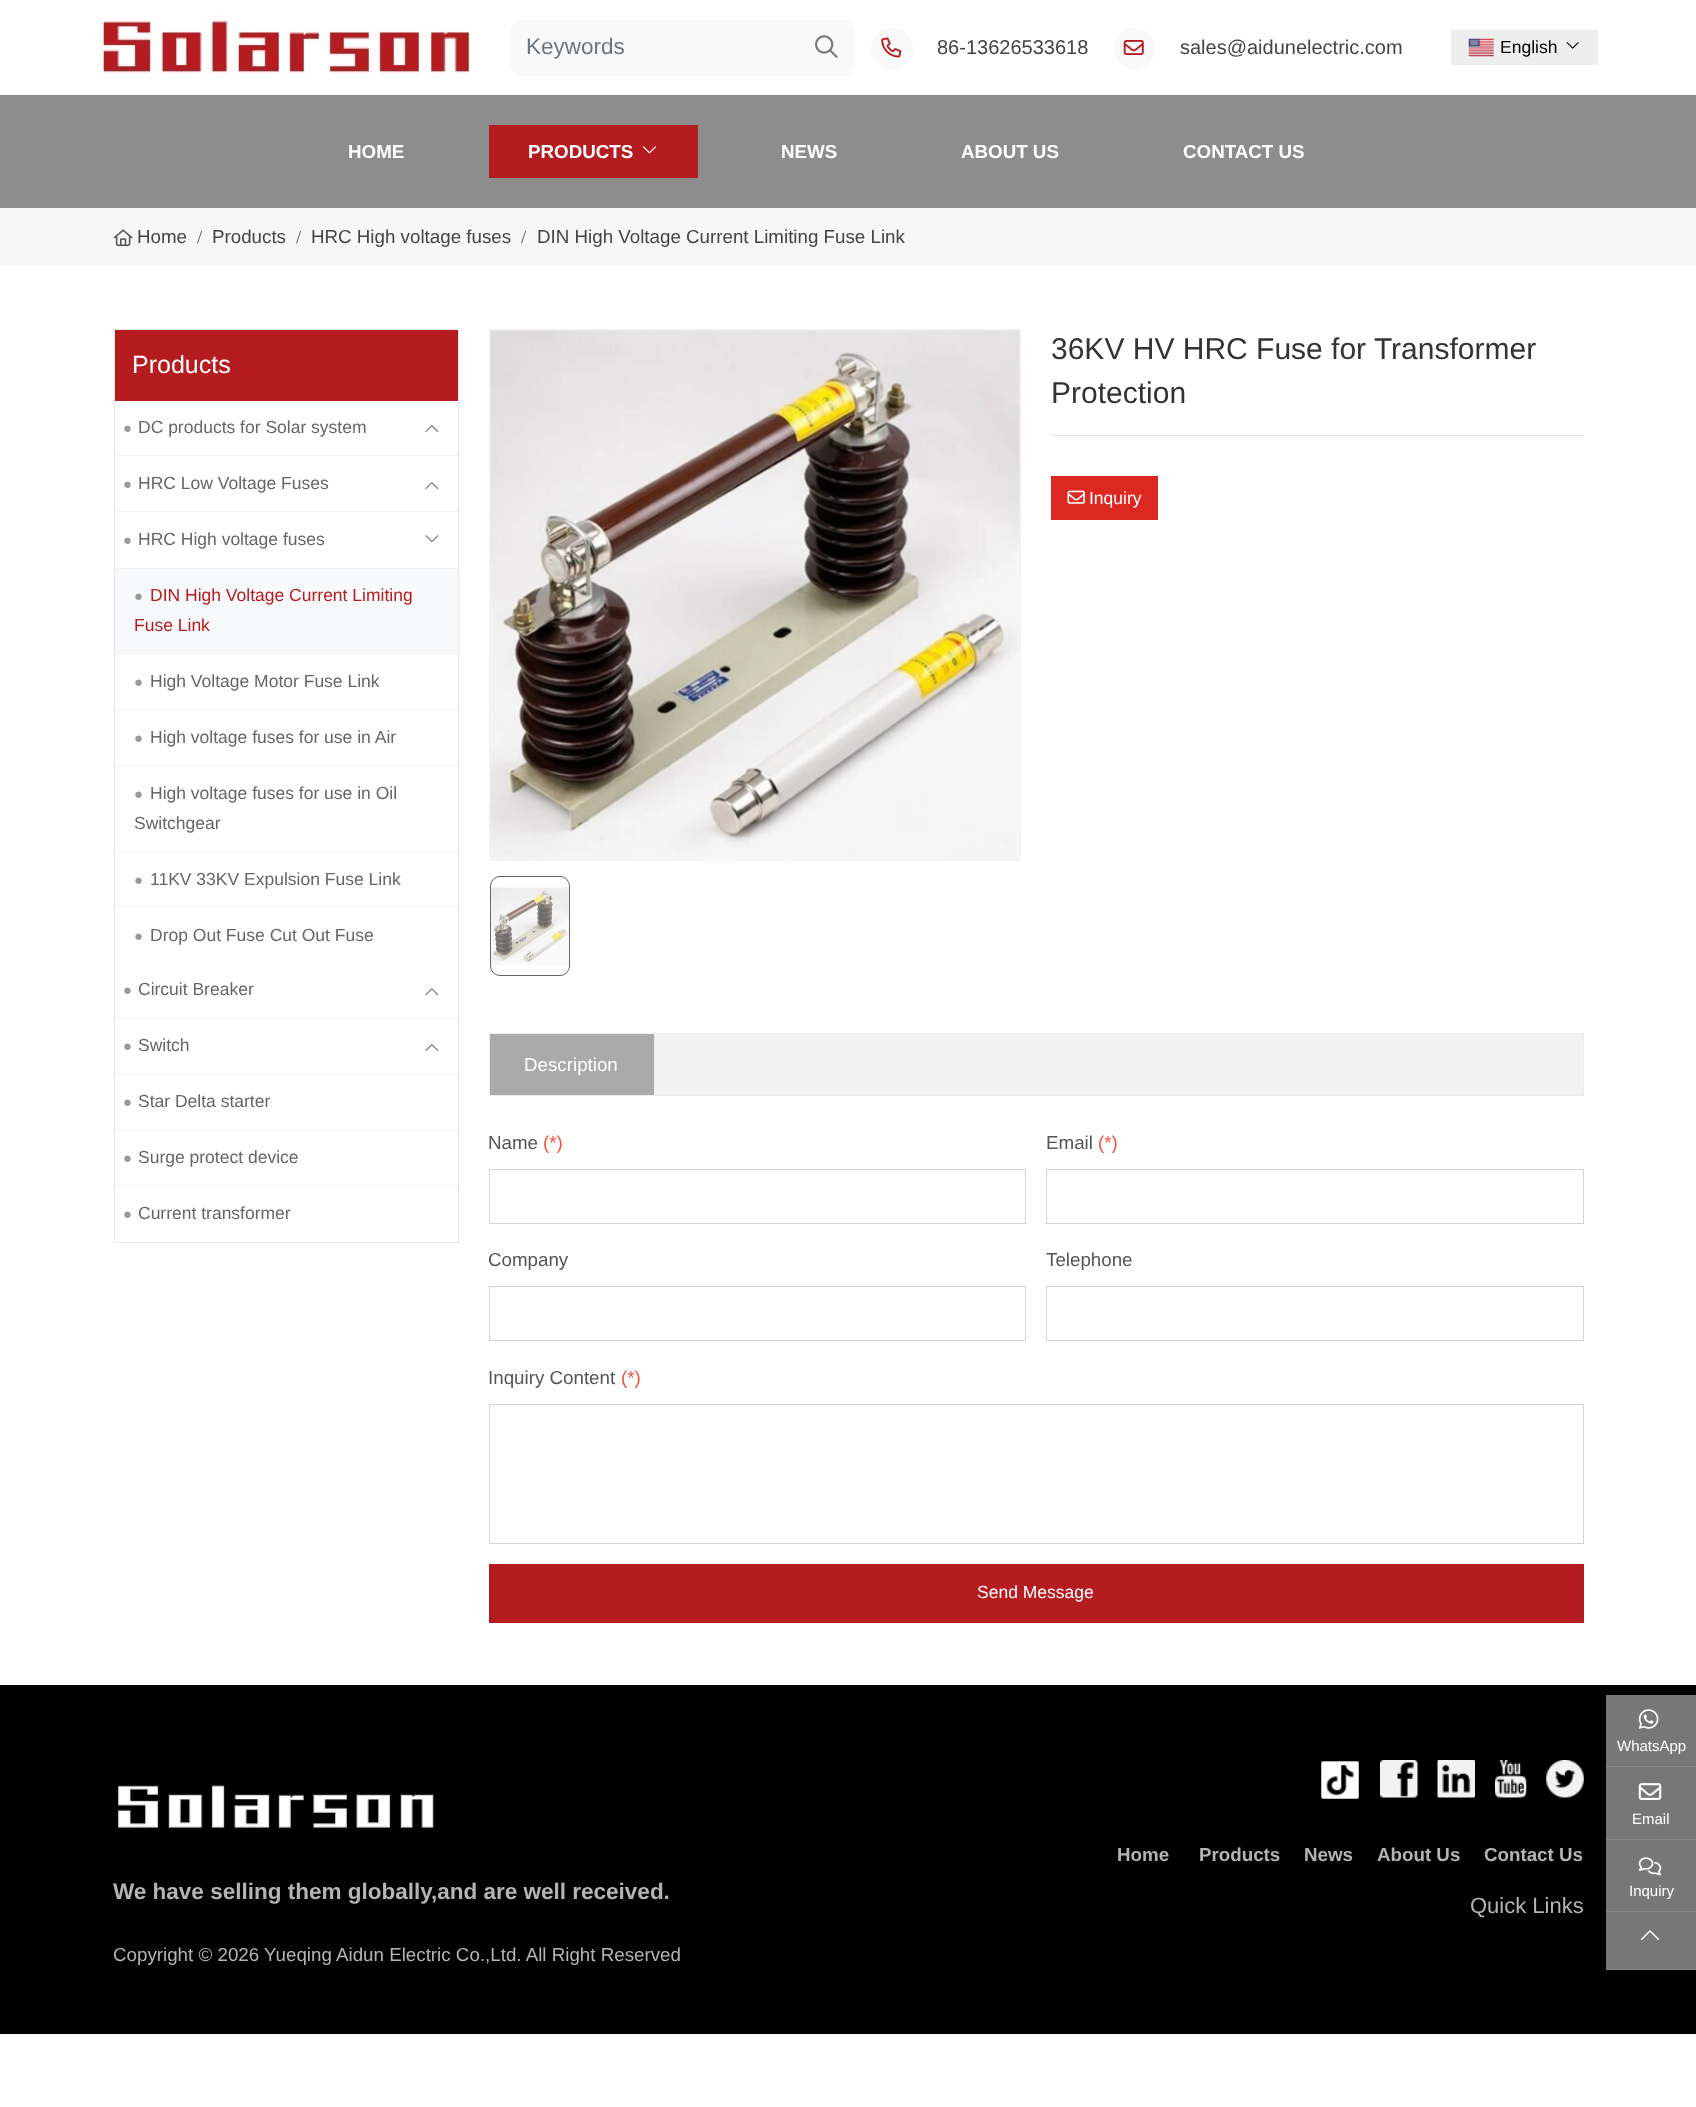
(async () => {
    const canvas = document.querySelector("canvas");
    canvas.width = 1696;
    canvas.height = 2107;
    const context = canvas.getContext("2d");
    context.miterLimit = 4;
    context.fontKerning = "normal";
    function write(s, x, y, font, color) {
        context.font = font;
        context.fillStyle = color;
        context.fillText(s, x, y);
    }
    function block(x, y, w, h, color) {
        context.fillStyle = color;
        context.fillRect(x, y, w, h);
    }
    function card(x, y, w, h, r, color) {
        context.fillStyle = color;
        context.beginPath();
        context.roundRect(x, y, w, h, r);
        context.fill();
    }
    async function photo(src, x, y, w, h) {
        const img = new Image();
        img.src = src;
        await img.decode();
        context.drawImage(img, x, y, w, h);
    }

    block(0, 0, 1696, 2107, "rgb(255, 255, 255)");
    await photo("media/1.png", 99, 15, 371, 60);
    context.fillStyle = "rgb(249, 249, 249)";
    context.beginPath();
    context.roundRect(510, 20, 290, 56, [13, 0, 0, 13]);
    context.fill();
    write("Keywords", 526, 54, "22.5px Liberation Sans", "rgb(108, 117, 125)");
    context.fillStyle = "rgb(249, 249, 249)";
    context.beginPath();
    context.roundRect(799, 20, 56, 56, [0, 13, 13, 0]);
    context.fill();
    await photo("media/2.png", 815, 35, 23, 23);
    card(871, 28, 42, 41, 20.5, "rgb(249, 249, 249)");
    await photo("media/3.png", 881, 37, 21, 21);
    write("86-13626533618", 937, 54, "20px Liberation Sans", "rgb(68, 68, 68)");
    context.fillStyle = "rgb(249, 249, 249)";
    context.beginPath();
    context.arc(1134.5, 48.5, 20.5, 0, Math.PI * 2);
    context.fill();
    await photo("media/4.png", 1123, 40, 21, 15);
    write("sales@aidunelectric.com", 1180, 54, "20px Liberation Sans", "rgb(68, 68, 68)");
    block(1451, 30, 147, 35, "rgb(238, 238, 238)");
    await photo("media/5.png", 1468, 38, 26, 19);
    write("English", 1500, 53, "17.5px Liberation Sans", "rgb(0, 0, 0)");
    await photo("media/6.png", 1566, 42, 13, 7);
    block(0, 95, 1696, 113, "rgb(141, 141, 141)");
    write("HOME", 348, 158, "bold 18.75px Liberation Sans", "rgb(255, 255, 255)");
    block(489, 125, 209, 53, "rgb(181, 28, 32)");
    write("PRODUCTS", 528, 158, "bold 18.75px Liberation Sans", "rgb(255, 255, 255)");
    await photo("media/7.png", 643, 146, 13, 8);
    write("NEWS", 781, 158, "bold 18.75px Liberation Sans", "rgb(255, 255, 255)");
    write("ABOUT US", 961, 158, "bold 18.75px Liberation Sans", "rgb(255, 255, 255)");
    write("CONTACT US", 1183, 158, "bold 18.75px Liberation Sans", "rgb(255, 255, 255)");
    block(0, 208, 1696, 58, "rgb(247, 247, 247)");
    await photo("media/8.png", 113, 229, 20, 18);
    write("Home", 137, 243, "18.75px Liberation Sans", "rgb(68, 68, 68)");
    write("/", 197, 243, "18.75px Liberation Serif", "rgb(85, 85, 85)");
    write("Products", 212, 243, "18.75px Liberation Sans", "rgb(68, 68, 68)");
    write("/", 296, 243, "18.75px Liberation Serif", "rgb(85, 85, 85)");
    write("HRC High voltage fuses", 311, 243, "18.75px Liberation Sans", "rgb(68, 68, 68)");
    write("/", 521, 243, "18.75px Liberation Serif", "rgb(85, 85, 85)");
    write("DIN High Voltage Current Limiting Fuse Link", 537, 243, "18.75px Liberation Sans", "rgb(68, 68, 68)");
    context.strokeStyle = "rgb(231, 231, 231)";
    context.strokeRect(114.5, 329.5, 344, 913);
    block(115, 330, 343, 71, "rgb(181, 28, 32)");
    write("Products", 132, 373, "25px Liberation Sans", "rgb(255, 255, 255)");
    block(115, 455, 343, 1, "rgb(242, 242, 242)");
    write("●", 123, 433, "15px Liberation Sans", "rgb(153, 153, 153)");
    write("DC products for Solar system", 138, 433, "17.5px Liberation Sans", "rgb(102, 102, 102)");
    await photo("media/9.png", 425, 425, 14, 7);
    block(115, 511, 343, 1, "rgb(242, 242, 242)");
    write("●", 123, 489, "15px Liberation Sans", "rgb(153, 153, 153)");
    write("HRC Low Voltage Fuses", 138, 489, "17.5px Liberation Sans", "rgb(102, 102, 102)");
    await photo("media/10.png", 425, 482, 14, 7);
    block(115, 568, 343, 1, "rgb(242, 242, 242)");
    write("●", 123, 545, "15px Liberation Sans", "rgb(153, 153, 153)");
    write("HRC High voltage fuses", 138, 545, "17.5px Liberation Sans", "rgb(102, 102, 102)");
    await photo("media/11.png", 425, 535, 14, 8);
    block(115, 653, 343, 1, "rgb(242, 242, 242)");
    block(115, 569, 343, 84, "rgb(248, 249, 250)");
    write("●", 134, 601, "15px Liberation Sans", "rgb(153, 153, 153)");
    write("DIN High Voltage Current Limiting", 150, 601, "17.5px Liberation Sans", "rgb(181, 28, 32)");
    write("Fuse Link", 134, 631, "17.5px Liberation Sans", "rgb(181, 28, 32)");
    block(115, 709, 343, 1, "rgb(242, 242, 242)");
    write("●", 134, 687, "15px Liberation Sans", "rgb(153, 153, 153)");
    write("High Voltage Motor Fuse Link", 150, 687, "17.5px Liberation Sans", "rgb(102, 102, 102)");
    block(115, 765, 343, 1, "rgb(242, 242, 242)");
    write("●", 134, 743, "15px Liberation Sans", "rgb(153, 153, 153)");
    write("High voltage fuses for use in Air", 150, 743, "17.5px Liberation Sans", "rgb(102, 102, 102)");
    block(115, 851, 343, 1, "rgb(242, 242, 242)");
    write("●", 134, 799, "15px Liberation Sans", "rgb(153, 153, 153)");
    write("High voltage fuses for use in Oil", 150, 799, "17.5px Liberation Sans", "rgb(102, 102, 102)");
    write("Switchgear", 134, 829, "17.5px Liberation Sans", "rgb(102, 102, 102)");
    block(115, 906, 343, 1, "rgb(242, 242, 242)");
    write("●", 134, 885, "15px Liberation Sans", "rgb(153, 153, 153)");
    write("11KV 33KV Expulsion Fuse Link", 150, 885, "17.5px Liberation Sans", "rgb(102, 102, 102)");
    write("●", 134, 941, "15px Liberation Sans", "rgb(153, 153, 153)");
    write("Drop Out Fuse Cut Out Fuse", 150, 941, "17.5px Liberation Sans", "rgb(102, 102, 102)");
    block(115, 1018, 343, 1, "rgb(242, 242, 242)");
    write("●", 123, 995, "15px Liberation Sans", "rgb(153, 153, 153)");
    write("Circuit Breaker", 138, 995, "17.5px Liberation Sans", "rgb(102, 102, 102)");
    await photo("media/12.png", 425, 988, 14, 8);
    block(115, 1074, 343, 1, "rgb(242, 242, 242)");
    write("●", 123, 1051, "15px Liberation Sans", "rgb(153, 153, 153)");
    write("Switch", 138, 1051, "17.5px Liberation Sans", "rgb(102, 102, 102)");
    await photo("media/13.png", 425, 1044, 14, 7);
    block(115, 1130, 343, 1, "rgb(242, 242, 242)");
    write("●", 123, 1107, "15px Liberation Sans", "rgb(153, 153, 153)");
    write("Star Delta starter", 138, 1107, "17.5px Liberation Sans", "rgb(102, 102, 102)");
    block(115, 1185, 343, 1, "rgb(242, 242, 242)");
    write("●", 123, 1163, "15px Liberation Sans", "rgb(153, 153, 153)");
    write("Surge protect device", 138, 1163, "17.5px Liberation Sans", "rgb(102, 102, 102)");
    write("●", 123, 1219, "15px Liberation Sans", "rgb(153, 153, 153)");
    write("Current transformer", 138, 1219, "17.5px Liberation Sans", "rgb(102, 102, 102)");
    context.strokeStyle = "rgb(242, 242, 242)";
    context.strokeRect(489.5, 329.5, 531, 531);
    block(490, 330, 530, 530, "rgb(250, 250, 250)");
    await photo("media/14.png", 490, 330, 530, 530);
    context.beginPath();
    context.roundRect(490.5, 876.5, 79, 99, 9.5);
    context.strokeStyle = "rgb(102, 102, 102)";
    context.stroke();
    await photo("media/15.png", 491, 887, 78, 78);
    write("36KV HV HRC Fuse for Transformer", 1051, 359, "30px Liberation Sans", "rgb(51, 51, 51)");
    write("Protection", 1051, 403, "30px Liberation Sans", "rgb(51, 51, 51)");
    block(1051, 435, 533, 1, "rgb(229, 229, 229)");
    block(1051, 476, 107, 44, "rgb(221, 40, 33)");
    await photo("media/16.png", 1067, 490, 18, 14);
    write("Inquiry", 1089, 504, "17.5px Liberation Sans", "rgb(255, 255, 255)");
    context.strokeStyle = "rgb(233, 238, 244)";
    context.strokeRect(489.5, 1033.5, 1094, 62);
    block(654, 1034, 929, 61, "rgb(242, 242, 242)");
    block(490, 1034, 164, 61, "rgb(170, 170, 170)");
    write("Description", 524, 1071, "18.75px Liberation Sans", "rgb(255, 255, 255)");
    write("Name", 488, 1149, "18.75px Liberation Sans", "rgb(85, 85, 85)");
    write("(*)", 543, 1149, "18.75px Liberation Sans", "rgb(245, 84, 63)");
    context.strokeStyle = "rgb(206, 212, 218)";
    context.strokeRect(489.5, 1169.5, 536, 54);
    write("Email", 1046, 1149, "18.75px Liberation Sans", "rgb(85, 85, 85)");
    write("(*)", 1098, 1149, "18.75px Liberation Sans", "rgb(245, 84, 63)");
    context.strokeRect(1046.5, 1169.5, 537, 54);
    write("Company", 488, 1266, "18.75px Liberation Sans", "rgb(85, 85, 85)");
    context.strokeRect(489.5, 1286.5, 536, 54);
    write("Telephone", 1046, 1266, "18.75px Liberation Sans", "rgb(85, 85, 85)");
    context.strokeRect(1046.5, 1286.5, 537, 54);
    write("Inquiry Content", 488, 1384, "18.75px Liberation Sans", "rgb(85, 85, 85)");
    write("(*)", 621, 1384, "18.75px Liberation Sans", "rgb(245, 84, 63)");
    context.strokeRect(489.5, 1404.5, 1094, 139);
    block(489, 1564, 1095, 59, "rgb(181, 28, 32)");
    write("Send Message", 977, 1598, "17.5px Liberation Sans", "rgb(255, 255, 255)");
    block(0, 1685, 1696, 349, "rgb(0, 0, 0)");
    await photo("media/17.png", 118, 1785, 316, 43);
    write("We have selling them globally,and are well received.", 113, 1899, "bold 22.5px Liberation Sans", "rgb(180, 180, 180)");
    write("Copyright © 2026 Yueqing Aidun Electric Co.,Ltd. All Right Reserved", 113, 1961, "18.75px Liberation Sans", "rgb(180, 180, 180)");
    await photo("media/18.png", 1321, 1761, 38, 38);
    await photo("media/19.png", 1380, 1760, 38, 38);
    await photo("media/20.png", 1437, 1760, 38, 38);
    await photo("media/21.png", 1495, 1760, 32, 38);
    await photo("media/22.png", 1546, 1760, 38, 38);
    write("Home", 1117, 1861, "bold 18.75px Liberation Sans", "rgb(180, 180, 180)");
    write("Products", 1199, 1861, "bold 18.75px Liberation Sans", "rgb(180, 180, 180)");
    write("News", 1304, 1861, "bold 18.75px Liberation Sans", "rgb(180, 180, 180)");
    write("About Us", 1377, 1861, "bold 18.75px Liberation Sans", "rgb(180, 180, 180)");
    write("Contact Us", 1484, 1861, "bold 18.75px Liberation Sans", "rgb(180, 180, 180)");
    write("Quick Links", 1470, 1913, "22px Liberation Sans", "rgb(180, 180, 180)");
    block(1606, 1695, 90, 144, "rgb(119, 119, 119)");
    block(1606, 1766, 90, 1, "rgb(136, 136, 136)");
    await photo("media/23.png", 1638, 1709, 21, 20);
    write("WhatsApp", 1617, 1751, "15px Liberation Sans", "rgb(255, 255, 255)");
    block(1606, 1839, 90, 1, "rgb(136, 136, 136)");
    await photo("media/24.png", 1638, 1783, 24, 17);
    write("Email", 1632, 1824, "15px Liberation Sans", "rgb(255, 255, 255)");
    block(1606, 1840, 90, 129, "rgb(119, 119, 119)");
    block(1606, 1911, 90, 1, "rgb(136, 136, 136)");
    await photo("media/25.png", 1638, 1857, 24, 19);
    write("Inquiry", 1629, 1896, "15px Liberation Sans", "rgb(255, 255, 255)");
    block(1606, 1969, 90, 1, "rgb(136, 136, 136)");
    await photo("media/26.png", 1640, 1930, 20, 10);
})();
